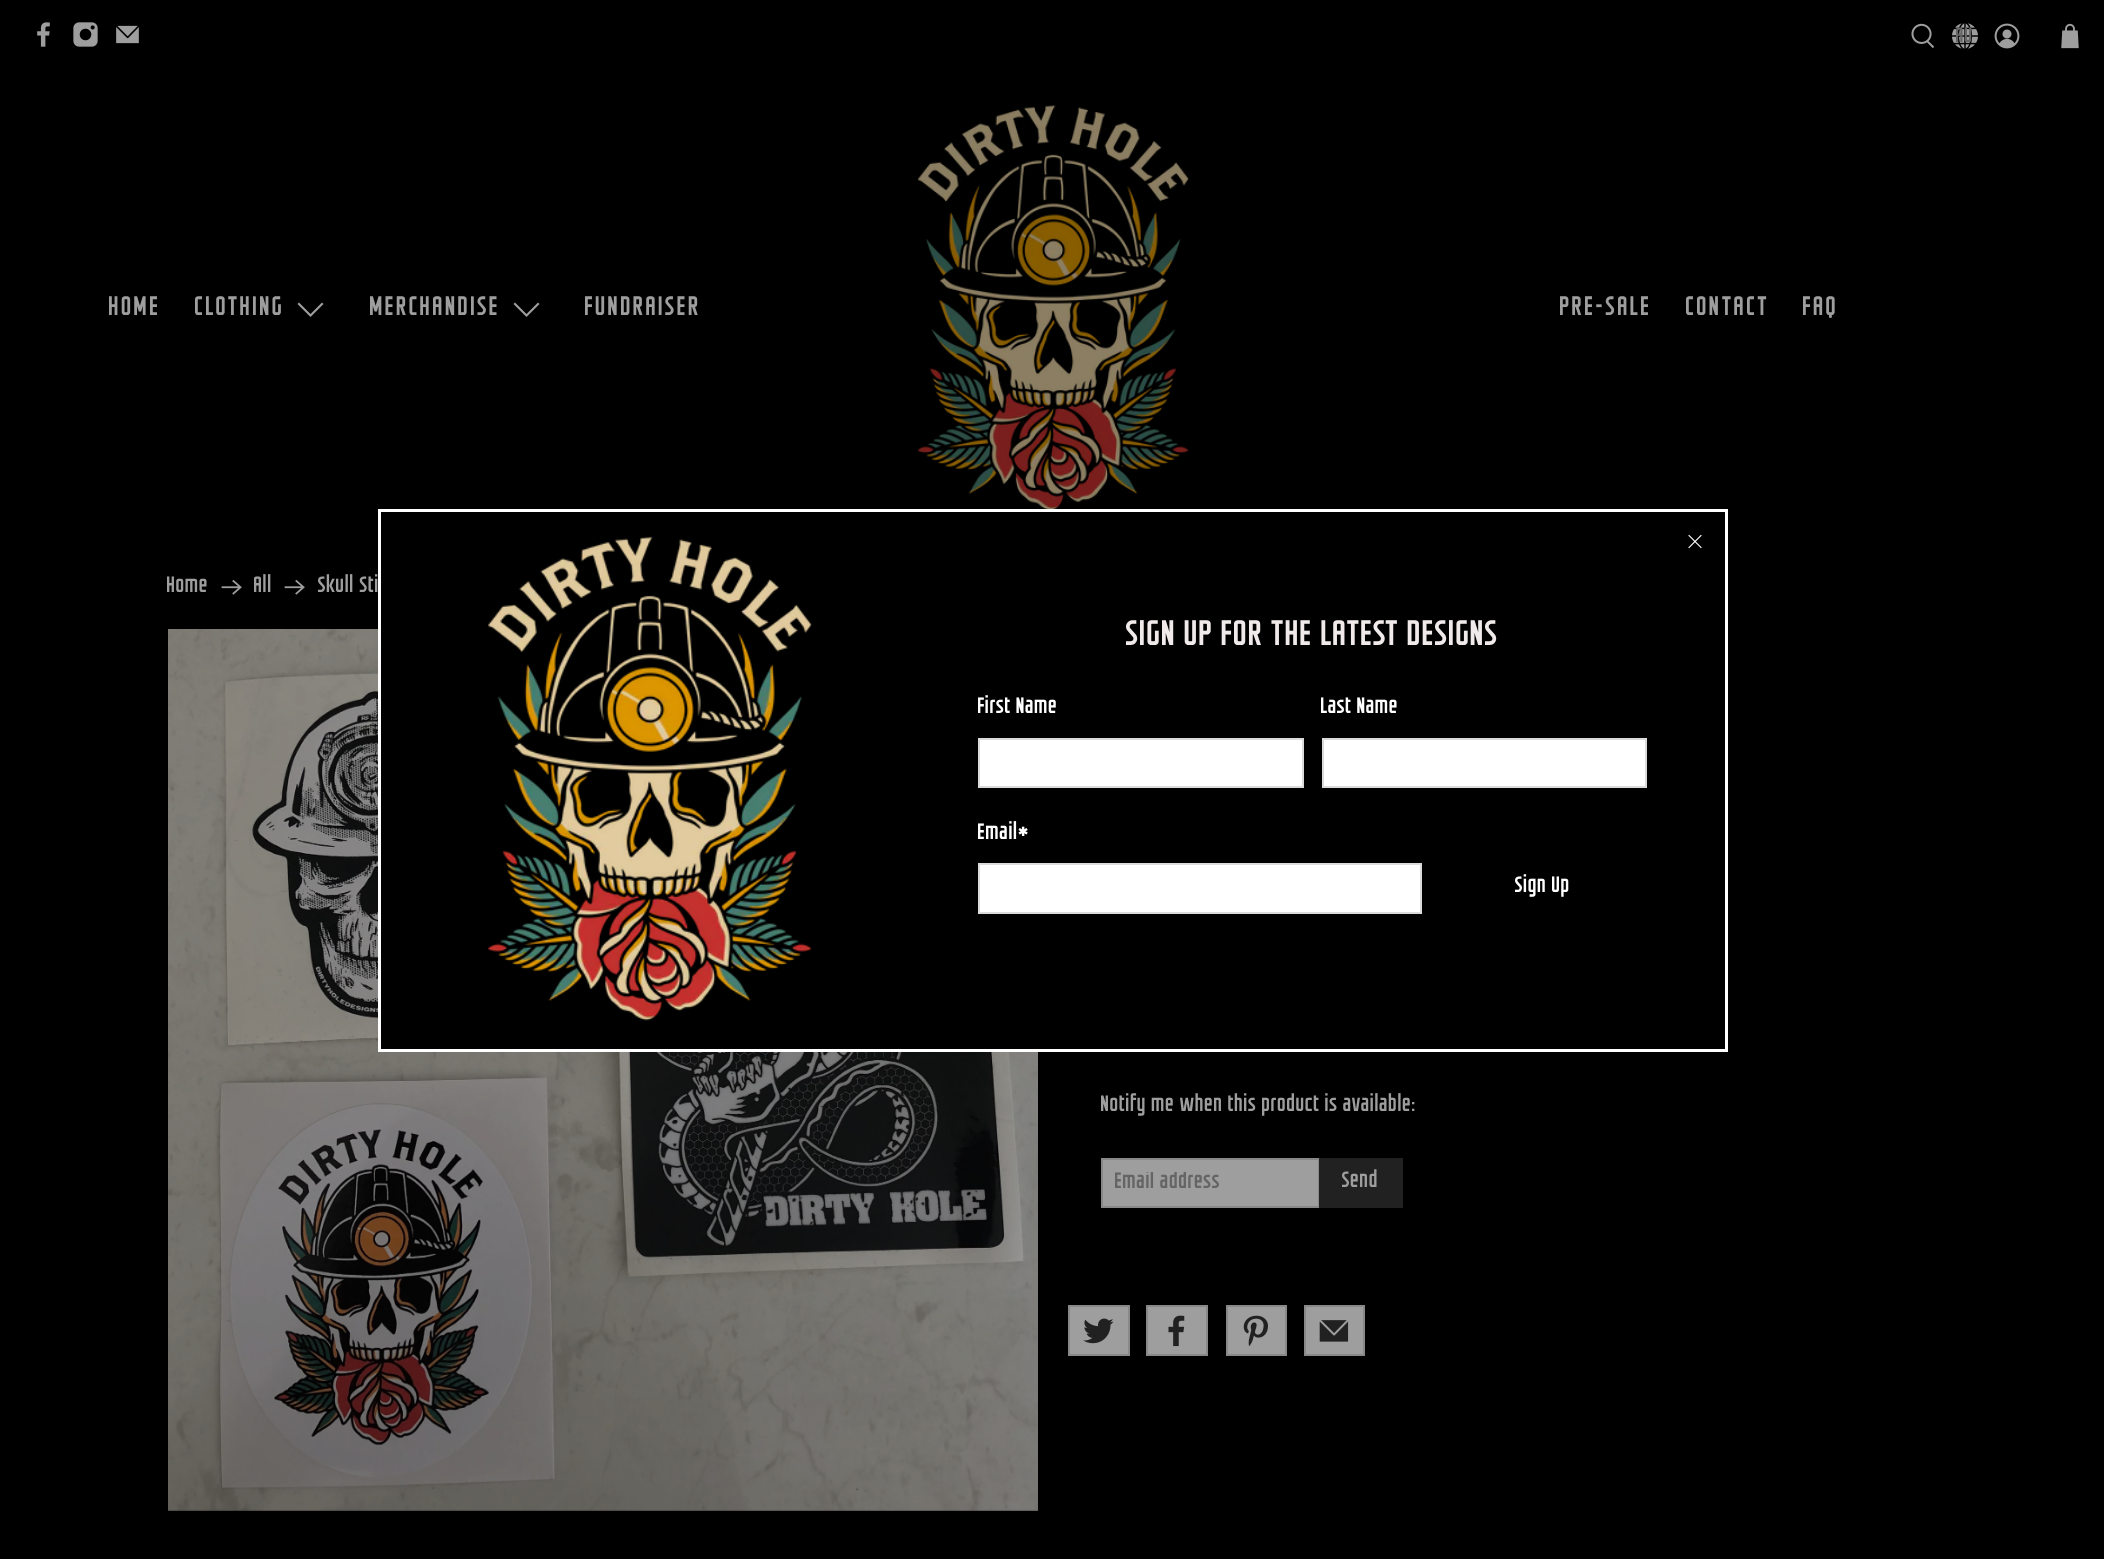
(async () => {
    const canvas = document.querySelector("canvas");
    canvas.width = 2104;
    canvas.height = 1559;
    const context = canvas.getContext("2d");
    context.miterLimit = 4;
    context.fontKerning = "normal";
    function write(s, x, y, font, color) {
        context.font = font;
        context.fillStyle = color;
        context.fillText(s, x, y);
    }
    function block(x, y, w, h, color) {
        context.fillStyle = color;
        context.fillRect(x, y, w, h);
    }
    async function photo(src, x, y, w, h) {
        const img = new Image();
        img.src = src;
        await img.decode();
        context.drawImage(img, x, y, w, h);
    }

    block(0, 0, 2104, 1559, "rgb(0, 0, 0)");
    await photo("media/1.png", 37, 22, 13, 25);
    await photo("media/2.png", 73, 22, 25, 25);
    await photo("media/3.png", 116, 25, 23, 19);
    await photo("media/4.png", 1911, 23, 24, 26);
    await photo("media/5.png", 1952, 23, 26, 26);
    context.save();
    context.beginPath();
    context.rect(1956, 21, 18, 32);
    context.clip();
    write("AU", 1956, 42, "21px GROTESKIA", "rgb(101, 101, 101)");
    context.restore();
    await photo("media/6.png", 1994, 23, 26, 26);
    await photo("media/7.png", 2061, 23, 18, 26);
    context.letterSpacing = "1.5px";
    write("HOME", 109, 315, "27px GROTESKIA", "rgb(158, 158, 158)");
    write("CLOTHING", 195, 315, "27px GROTESKIA", "rgb(158, 158, 158)");
    context.beginPath();
    context.moveTo(310.5, 317);
    context.lineTo(297.5, 304);
    context.lineTo(299, 302.5);
    context.lineTo(310.5, 314);
    context.lineTo(322, 302.5);
    context.lineTo(323.5, 304);
    context.closePath();
    context.fill();
    write("MERCHANDISE", 370, 315, "27px GROTESKIA", "rgb(158, 158, 158)");
    context.beginPath();
    context.moveTo(526.5, 317);
    context.lineTo(513.5, 304);
    context.lineTo(515, 302.5);
    context.lineTo(526.5, 314);
    context.lineTo(538, 302.5);
    context.lineTo(539.5, 304);
    context.closePath();
    context.fill();
    write("FUNDRAISER", 585, 315, "27px GROTESKIA", "rgb(158, 158, 158)");
    await photo("media/8.png", 917, 105, 272, 404);
    write("PRE-SALE", 1560, 315, "27px GROTESKIA", "rgb(158, 158, 158)");
    write("CONTACT", 1686, 315, "27px GROTESKIA", "rgb(158, 158, 158)");
    write("FAQ", 1803, 315, "27px GROTESKIA", "rgb(158, 158, 158)");
    context.letterSpacing = "0px";
    write("Home", 167, 592, "22.5px GROTESKIA", "rgb(158, 158, 158)");
    await photo("media/9.png", 221, 579, 21, 16);
    write("All", 254, 592, "22.5px GROTESKIA", "rgb(158, 158, 158)");
    await photo("media/9.png", 284, 579, 21, 16);
    write("Skull Sti", 318, 592, "22.5px GROTESKIA", "rgb(158, 158, 158)");
    await photo("media/10.png", 168, 629, 870, 882);
    write("Notify me when this product is available:", 1101, 1111, "22.5px GROTESKIA", "rgb(158, 158, 158)");
    context.beginPath();
    context.rect(1102, 1159, 217, 48);
    context.fill();
    context.strokeStyle = "rgb(136, 136, 136)";
    context.lineWidth = 2;
    context.stroke();
    context.save();
    context.beginPath();
    context.rect(1115, 1172, 190, 22);
    context.clip();
    write("Email address", 1115, 1188, "22.5px GROTESKIA", "rgb(101, 101, 101)");
    context.restore();
    block(1319, 1158, 84, 50, "rgb(33, 33, 33)");
    write("Send", 1342, 1187, "22.5px GROTESKIA", "rgb(158, 158, 158)");
    context.beginPath();
    context.rect(1069, 1306, 60, 49);
    context.fill();
    context.stroke();
    await photo("media/11.png", 1083, 1318, 31, 26);
    context.beginPath();
    context.rect(1147, 1306, 60, 49);
    context.fill();
    context.stroke();
    await photo("media/12.png", 1168, 1315, 17, 32);
    context.beginPath();
    context.rect(1227, 1306, 59, 49);
    context.fill();
    context.stroke();
    await photo("media/13.png", 1243, 1315, 25, 31);
    context.beginPath();
    context.rect(1305, 1306, 59, 49);
    context.fill();
    context.stroke();
    await photo("media/14.png", 1319, 1320, 30, 22);
    block(381, 629, 657, 420, "rgb(0, 0, 0)");
    context.strokeStyle = "rgb(255, 255, 255)";
    context.lineWidth = 3;
    context.strokeRect(379.5, 510.5, 1347, 540);
    await photo("media/15.png", 1688, 534, 14, 15);
    await photo("media/16.png", 487, 536, 325, 485);
    write("SIGN UP FOR THE LATEST DESIGNS", 1126, 645, "36px GROTESKIA", "rgb(240, 234, 234)");
    write("First Name", 978, 713, "22.5px GROTESKIA", "rgb(255, 255, 255)");
    context.beginPath();
    context.rect(979, 739, 324, 48);
    context.fill();
    context.strokeStyle = "rgb(219, 219, 219)";
    context.lineWidth = 2;
    context.stroke();
    write("Last Name", 1321, 713, "22.5px GROTESKIA", "rgb(255, 255, 255)");
    context.beginPath();
    context.rect(1323, 739, 323, 48);
    context.fill();
    context.stroke();
    write("Email*", 978, 839, "22.5px GROTESKIA", "rgb(255, 255, 255)");
    context.beginPath();
    context.rect(979, 864, 442, 49);
    context.fill();
    context.stroke();
    write("Sign Up", 1515, 892, "22.5px GROTESKIA", "rgb(255, 255, 255)");
})();
